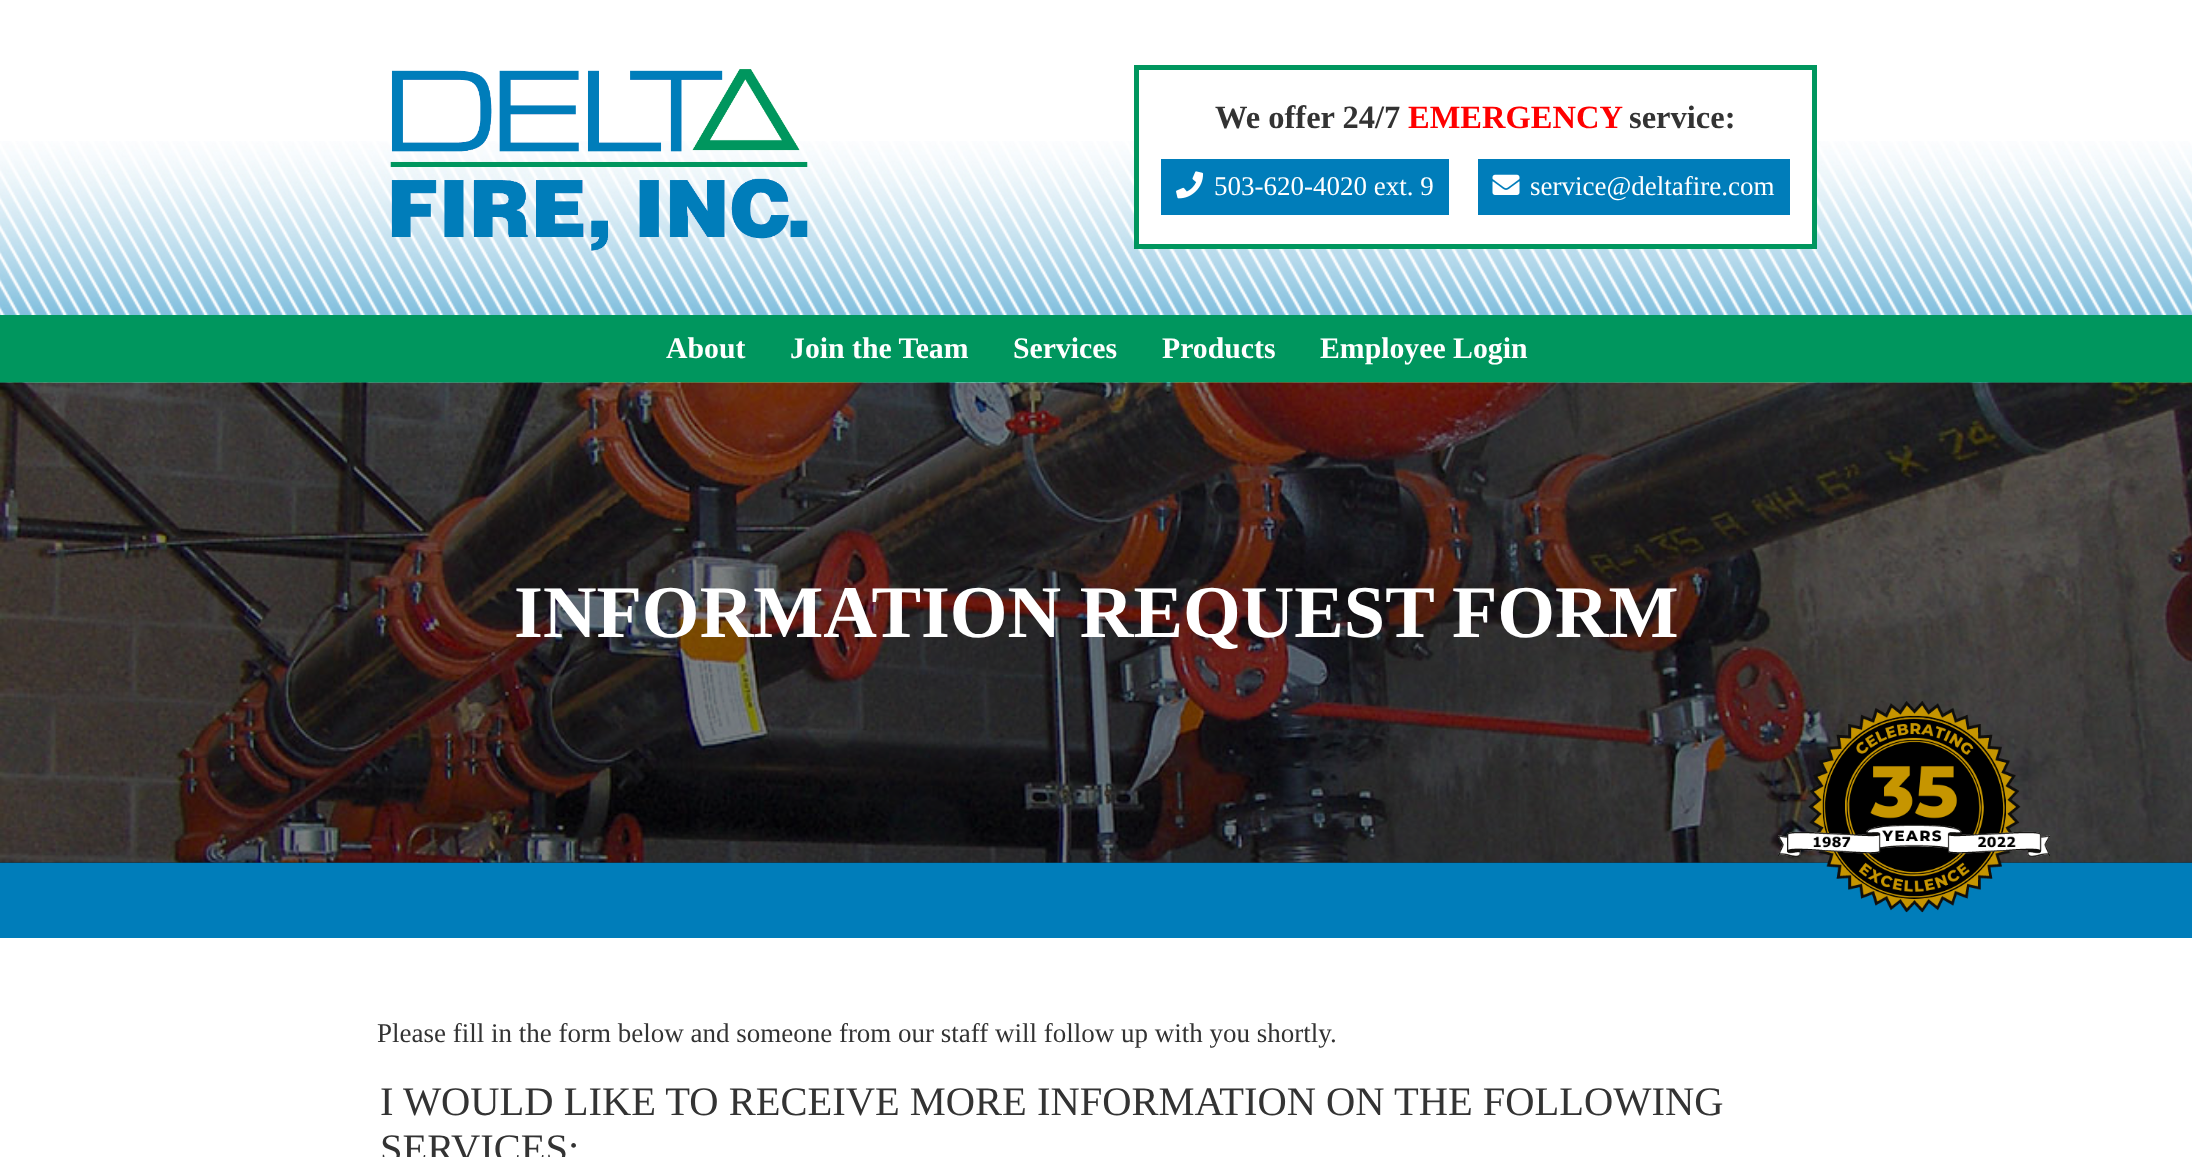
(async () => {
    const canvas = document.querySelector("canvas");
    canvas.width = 2192;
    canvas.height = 1157;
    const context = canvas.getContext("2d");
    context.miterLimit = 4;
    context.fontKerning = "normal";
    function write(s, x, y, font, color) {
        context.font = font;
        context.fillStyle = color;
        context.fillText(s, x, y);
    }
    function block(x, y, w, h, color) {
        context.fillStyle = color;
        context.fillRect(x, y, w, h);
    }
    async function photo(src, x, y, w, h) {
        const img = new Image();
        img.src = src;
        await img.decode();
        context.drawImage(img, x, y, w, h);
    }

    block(0, 0, 2192, 1157, "rgb(255, 255, 255)");
    await photo("media/1.png", 0, 141, 2192, 174);
    await photo("media/2.png", 390, 69, 418, 182);
    block(1139, 141, 673, 103, "rgb(255, 255, 255)");
    context.strokeStyle = "rgb(0, 150, 94)";
    context.lineWidth = 5;
    context.strokeRect(1136.5, 67.5, 678, 179);
    write("We offer 24/7", 1215, 128, "bold 32.5px Liberation Serif", "rgb(51, 51, 51)");
    write("EMERGENCY", 1408, 128, "bold 32.5px Liberation Serif", "rgb(255, 0, 0)");
    write("service:", 1629, 128, "bold 32.5px Liberation Serif", "rgb(51, 51, 51)");
    block(1161, 159, 288, 56, "rgb(0, 125, 186)");
    await photo("media/3.png", 1176, 171, 28, 28);
    write("503-620-4020 ext. 9", 1214, 195, "27px Liberation Serif", "rgb(255, 255, 255)");
    block(1478, 159, 312, 56, "rgb(0, 125, 186)");
    await photo("media/4.png", 1492, 174, 28, 21);
    write("service@deltafire.com", 1530, 195, "27px Liberation Serif", "rgb(255, 255, 255)");
    block(0, 315, 2192, 68, "rgb(0, 150, 94)");
    write("About", 666, 358, "bold 29.75px Liberation Serif", "rgb(255, 255, 255)");
    write("Join the Team", 790, 358, "bold 29.75px Liberation Serif", "rgb(255, 255, 255)");
    write("Services", 1013, 358, "bold 29.75px Liberation Serif", "rgb(255, 255, 255)");
    write("Products", 1162, 358, "bold 29.75px Liberation Serif", "rgb(255, 255, 255)");
    write("Employee Login", 1320, 358, "bold 29.75px Liberation Serif", "rgb(255, 255, 255)");
    block(0, 863, 2192, 75, "rgb(0, 125, 186)");
    block(0, 862, 2192, 1, "rgb(0, 63, 93)");
    await photo("media/5.png", 0, 382, 2192, 481);
    write("INFORMATION REQUEST FORM", 514, 637, "bold 74.25px Liberation Serif", "rgb(255, 255, 255)");
    await photo("media/6.png", 1778, 701, 272, 212);
    write("Please fill in the form below and someone from our staff will follow up with you shortly.", 377, 1042, "27px Liberation Serif", "rgb(51, 51, 51)");
    write("I WOULD LIKE TO RECEIVE MORE INFORMATION ON THE FOLLOWING", 380, 1115, "40.5px Liberation Serif", "rgb(51, 51, 51)");
    write("SERVICES:", 380, 1162, "40.5px Liberation Serif", "rgb(51, 51, 51)");
})();
